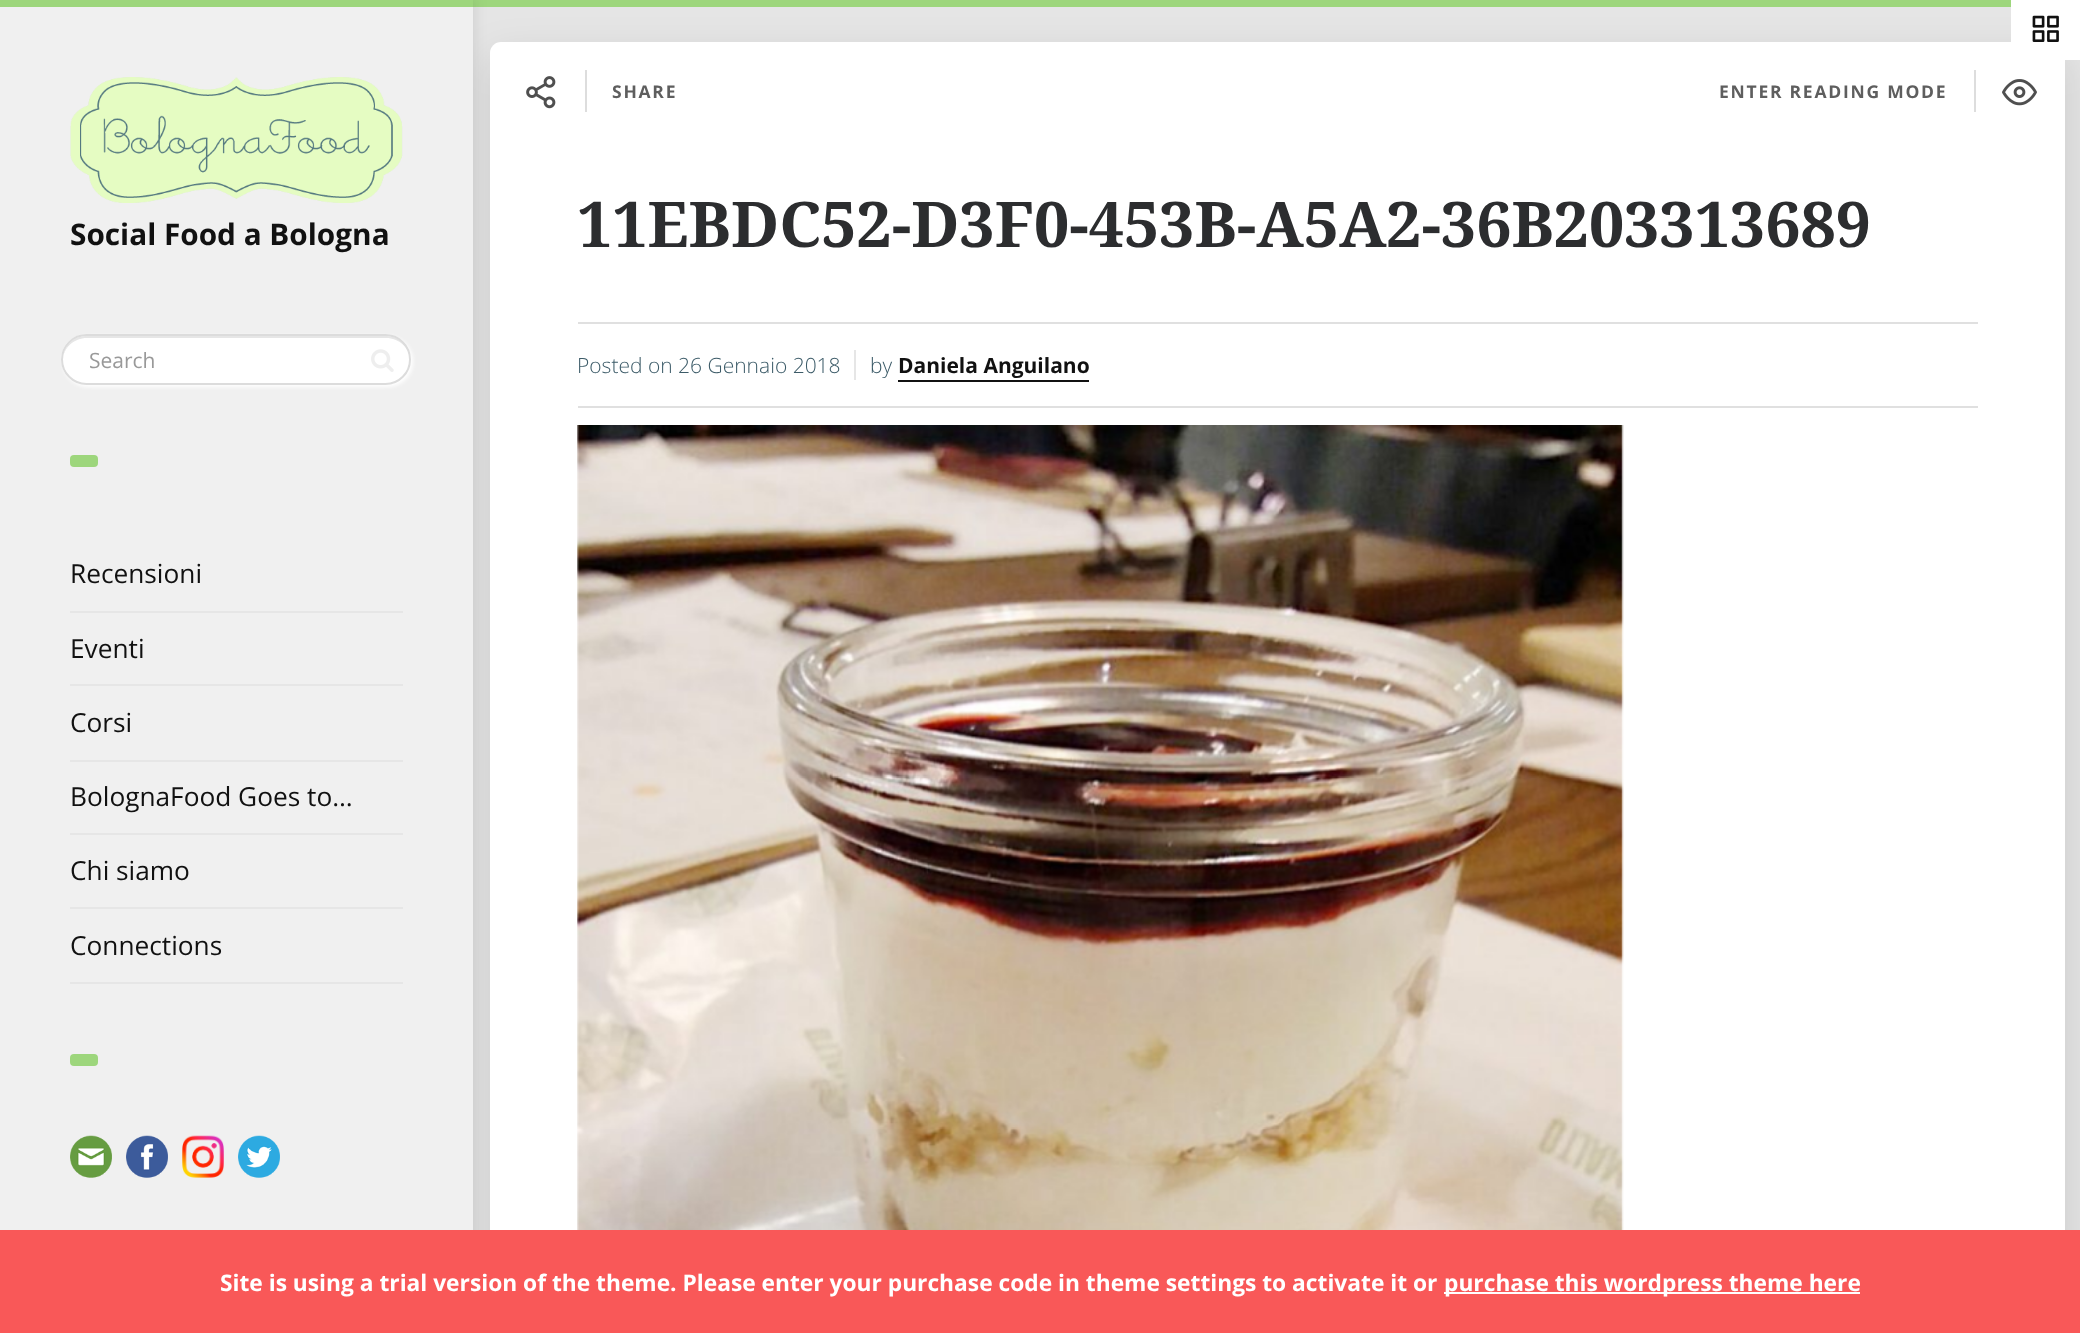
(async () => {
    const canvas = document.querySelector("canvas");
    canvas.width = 2080;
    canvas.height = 1333;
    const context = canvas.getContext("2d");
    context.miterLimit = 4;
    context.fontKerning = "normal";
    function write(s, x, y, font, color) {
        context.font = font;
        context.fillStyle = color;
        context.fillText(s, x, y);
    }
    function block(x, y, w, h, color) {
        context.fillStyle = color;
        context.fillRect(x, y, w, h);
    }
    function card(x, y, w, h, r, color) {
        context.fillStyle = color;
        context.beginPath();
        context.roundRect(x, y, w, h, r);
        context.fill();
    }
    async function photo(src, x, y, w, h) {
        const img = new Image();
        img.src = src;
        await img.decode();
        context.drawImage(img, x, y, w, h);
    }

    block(0, 0, 2080, 1333, "rgb(229, 229, 229)");
    block(473, 0, 1538, 7, "rgb(157, 214, 124)");
    context.fillStyle = "rgba(0, 0, 0, 0.12)";
    context.filter = "blur(21px)";
    context.beginPath();
    context.roundRect(490, 58, 1575, 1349, 11);
    context.fill();
    context.filter = "none";
    card(490, 42, 1575, 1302, 11, "rgb(255, 255, 255)");
    block(2011, 0, 69, 60, "rgb(255, 255, 255)");
    await photo("media/1.png", 2032, 15, 27, 27);
    context.fillStyle = "rgba(0, 0, 0, 0.1)";
    context.filter = "blur(7px)";
    context.beginPath();
    context.rect(-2, -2, 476, 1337);
    context.fill();
    context.filter = "none";
    block(0, 7, 473, 1223, "rgb(240, 240, 240)");
    block(0, 0, 473, 7, "rgb(157, 214, 124)");
    await photo("media/2.png", 70, 77, 333, 126);
    write("Social Food a Bologna", 70, 245, "bold 29.75px Open Sans", "rgb(17, 17, 17)");
    context.fillStyle = "rgb(255, 255, 255)";
    context.filter = "blur(2px)";
    context.beginPath();
    context.roundRect(63, 336, 350, 51, 25.5);
    context.fill();
    context.filter = "none";
    card(61, 334, 350, 51, 25.5, "rgb(255, 255, 255)");
    context.fillStyle = "rgb(230, 230, 230)";
    context.beginPath();
    context.moveTo(87, 338);
    context.lineTo(386, 338);
    context.bezierCurveTo(399, 338, 410, 348, 410, 360);
    context.bezierCurveTo(410, 347, 400, 336, 386, 336);
    context.lineTo(86, 336);
    context.bezierCurveTo(73, 336, 63, 347, 63, 360);
    context.bezierCurveTo(63, 348, 74, 338, 87, 338);
    context.closePath();
    context.fill();
    context.beginPath();
    context.roundRect(62, 335, 348, 49, 24.5);
    context.strokeStyle = "rgb(220, 220, 220)";
    context.lineWidth = 2;
    context.stroke();
    write("Search", 89, 368, "21px Open Sans", "rgb(153, 153, 153)");
    await photo("media/3.png", 371, 349, 23, 23);
    card(70, 455, 28, 12, 4, "rgb(157, 214, 124)");
    block(70, 611, 333, 2, "rgb(230, 230, 230)");
    write("Recensioni", 70, 583, "26.25px Open Sans", "rgb(17, 17, 17)");
    block(70, 684, 333, 2, "rgb(230, 230, 230)");
    write("Eventi", 70, 658, "26.25px Open Sans", "rgb(17, 17, 17)");
    block(70, 760, 333, 2, "rgb(230, 230, 230)");
    write("Corsi", 70, 732, "26.25px Open Sans", "rgb(17, 17, 17)");
    block(70, 833, 333, 2, "rgb(230, 230, 230)");
    write("BolognaFood Goes to…", 70, 806, "26.25px Open Sans", "rgb(17, 17, 17)");
    block(70, 907, 333, 2, "rgb(230, 230, 230)");
    write("Chi siamo", 70, 880, "26.25px Open Sans", "rgb(17, 17, 17)");
    block(70, 982, 333, 2, "rgb(230, 230, 230)");
    write("Connections", 70, 955, "26.25px Open Sans", "rgb(17, 17, 17)");
    card(70, 1054, 28, 12, 4, "rgb(157, 214, 124)");
    await photo("media/4.png", 70, 1135, 42, 43);
    await photo("media/5.png", 126, 1135, 42, 43);
    await photo("media/6.png", 182, 1135, 42, 43);
    await photo("media/7.png", 238, 1135, 42, 43);
    block(585, 70, 2, 42, "rgb(221, 221, 221)");
    await photo("media/8.png", 526, 76, 30, 33);
    context.letterSpacing = "1.75px";
    write("SHARE", 612, 98, "bold 17.5px Open Sans", "rgb(94, 94, 94)");
    block(1974, 70, 2, 42, "rgb(221, 221, 221)");
    write("ENTER READING MODE", 1719, 98, "bold 17.5px Open Sans", "rgb(94, 94, 94)");
    await photo("media/9.png", 2002, 79, 35, 27);
    context.letterSpacing = "0px";
    write("11EBDC52-D3F0-453B-A5A2-36B203313689", 577, 247, "bold 63px Droid Serif", "rgb(44, 45, 47)");
    block(578, 322, 1400, 2, "rgb(224, 224, 224)");
    block(578, 406, 1400, 2, "rgb(224, 224, 224)");
    write("Posted on 26 Gennaio 2018", 577, 373, "300 21px Open Sans", "rgb(60, 91, 104)");
    block(854, 350, 2, 30, "rgb(230, 230, 230)");
    write("by", 870, 373, "300 21px Open Sans", "rgb(60, 91, 104)");
    write("Daniela Anguilano", 898, 373, "bold 21px Open Sans", "rgb(17, 17, 17)");
    block(898, 380, 191, 2, "rgb(17, 17, 17)");
    await photo("media/10.png", 577, 425, 1047, 805);
    block(0, 1230, 2080, 103, "rgb(249, 88, 88)");
    write("Site is using a trial version of the theme. Please enter your purchase code in theme settings to activate it or", 220, 1291, "bold 22.75px Open Sans", "rgb(255, 255, 255)");
    block(1444, 1292, 416, 2, "rgb(255, 255, 255)");
    write("purchase this wordpress theme here", 1444, 1291, "bold 22.75px Open Sans", "rgb(255, 255, 255)");
})();
